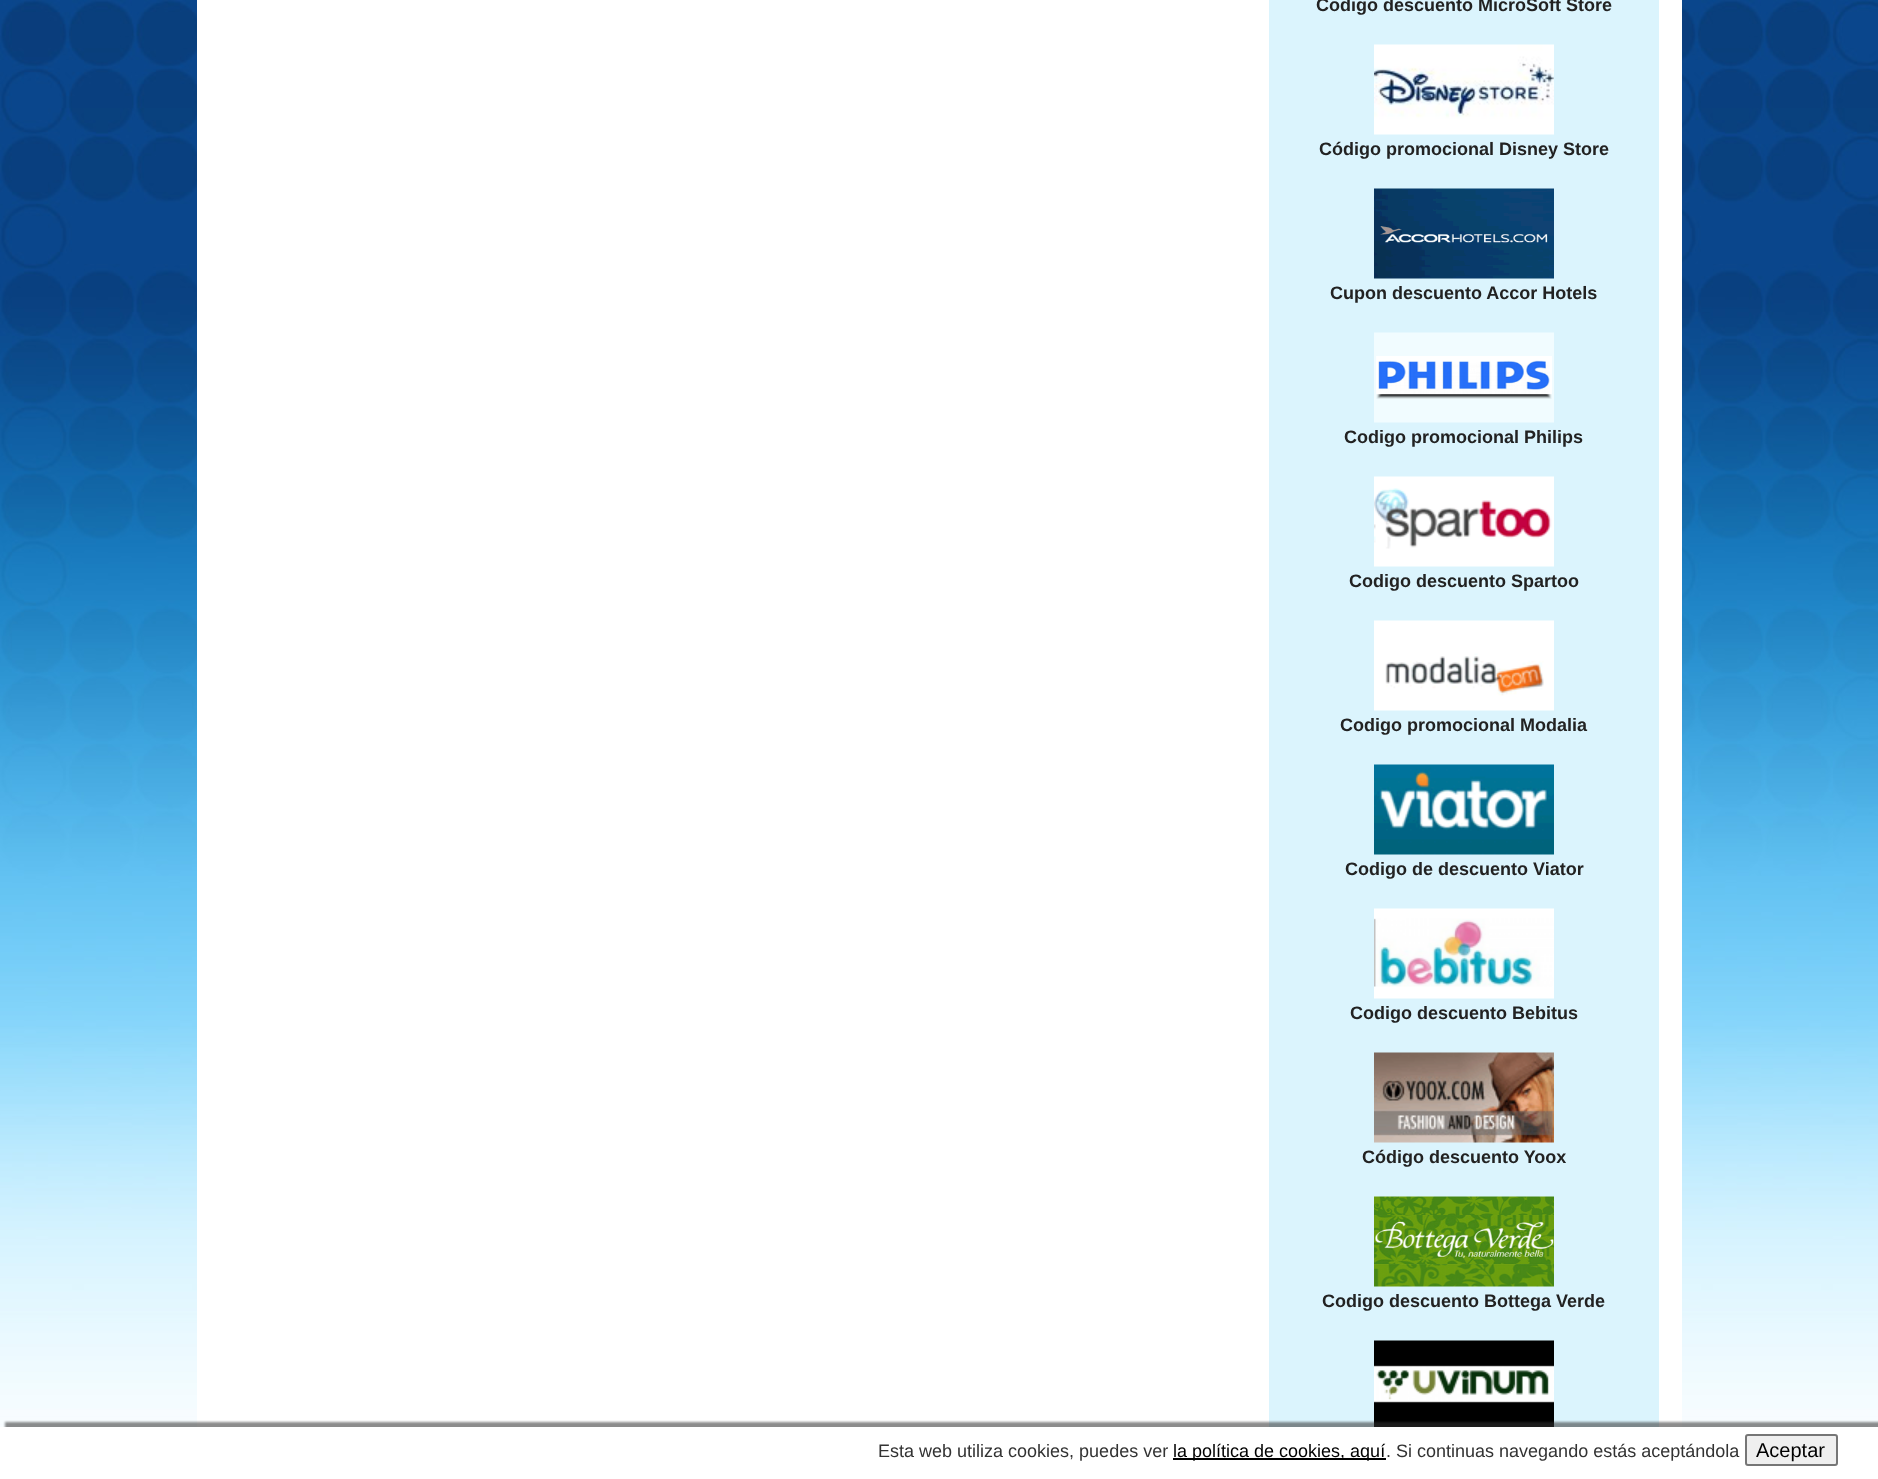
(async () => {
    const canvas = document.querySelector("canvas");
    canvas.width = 1878;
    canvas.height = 1479;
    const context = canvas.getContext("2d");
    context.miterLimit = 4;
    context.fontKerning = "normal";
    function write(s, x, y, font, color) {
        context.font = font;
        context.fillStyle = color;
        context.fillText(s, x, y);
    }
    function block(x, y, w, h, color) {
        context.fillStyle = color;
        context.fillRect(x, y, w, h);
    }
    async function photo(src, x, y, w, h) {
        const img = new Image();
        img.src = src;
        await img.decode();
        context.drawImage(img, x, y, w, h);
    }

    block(0, 0, 1878, 1479, "rgb(255, 255, 255)");
    await photo("media/1.png", 0, 0, 1878, 1427);
    block(197, 0, 1485, 1427, "rgb(255, 255, 255)");
    block(1269, 0, 390, 1427, "rgb(219, 244, 253)");
    write("Codigo descuento MicroSoft Store", 1316, 11, "bold 18px Liberation Sans", "rgb(34, 34, 34)");
    await photo("media/2.png", 1374, 44, 180, 91);
    write("Código promocional Disney Store", 1319, 155, "bold 18px Liberation Sans", "rgb(34, 34, 34)");
    await photo("media/3.png", 1374, 188, 180, 91);
    write("Cupon descuento Accor Hotels", 1330, 299, "bold 18px Liberation Sans", "rgb(34, 34, 34)");
    await photo("media/4.png", 1374, 332, 180, 91);
    write("Codigo promocional Philips", 1344, 443, "bold 18px Liberation Sans", "rgb(34, 34, 34)");
    await photo("media/5.png", 1374, 476, 180, 91);
    write("Codigo descuento Spartoo", 1349, 587, "bold 18px Liberation Sans", "rgb(34, 34, 34)");
    await photo("media/6.png", 1374, 620, 180, 91);
    write("Codigo promocional Modalia", 1340, 731, "bold 18px Liberation Sans", "rgb(34, 34, 34)");
    await photo("media/7.png", 1374, 764, 180, 91);
    write("Codigo de descuento Viator", 1345, 875, "bold 18px Liberation Sans", "rgb(34, 34, 34)");
    await photo("media/8.png", 1374, 908, 180, 91);
    write("Codigo descuento Bebitus", 1350, 1019, "bold 18px Liberation Sans", "rgb(34, 34, 34)");
    await photo("media/9.png", 1374, 1052, 180, 91);
    write("Código descuento Yoox", 1362, 1163, "bold 18px Liberation Sans", "rgb(34, 34, 34)");
    await photo("media/10.png", 1374, 1196, 180, 91);
    write("Codigo descuento Bottega Verde", 1322, 1307, "bold 18px Liberation Sans", "rgb(34, 34, 34)");
    await photo("media/11.png", 1374, 1340, 180, 87);
    context.fillStyle = "rgba(50, 50, 50, 0.56)";
    context.filter = "blur(1px)";
    context.beginPath();
    context.rect(5, 1422, 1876, 53);
    context.fill();
    context.filter = "none";
    block(3, 1427, 1875, 50, "rgb(255, 255, 255)");
    write("Esta web utiliza cookies, puedes ver", 878, 1457, "18px Liberation Sans", "rgb(51, 51, 51)");
    block(1173, 1458, 213, 2, "rgb(0, 0, 0)");
    write("la política de cookies, aquí", 1173, 1457, "18px Liberation Sans", "rgb(0, 0, 0)");
    write(". Si continuas navegando estás aceptándola", 1386, 1457, "18px Liberation Sans", "rgb(51, 51, 51)");
    context.fillStyle = "rgb(239, 239, 239)";
    context.beginPath();
    context.roundRect(1746, 1435, 91, 30, 2);
    context.fill();
    context.strokeStyle = "rgb(118, 118, 118)";
    context.lineWidth = 2;
    context.stroke();
    write("Aceptar", 1756, 1457, "20px Liberation Sans", "rgb(0, 0, 0)");
})();
